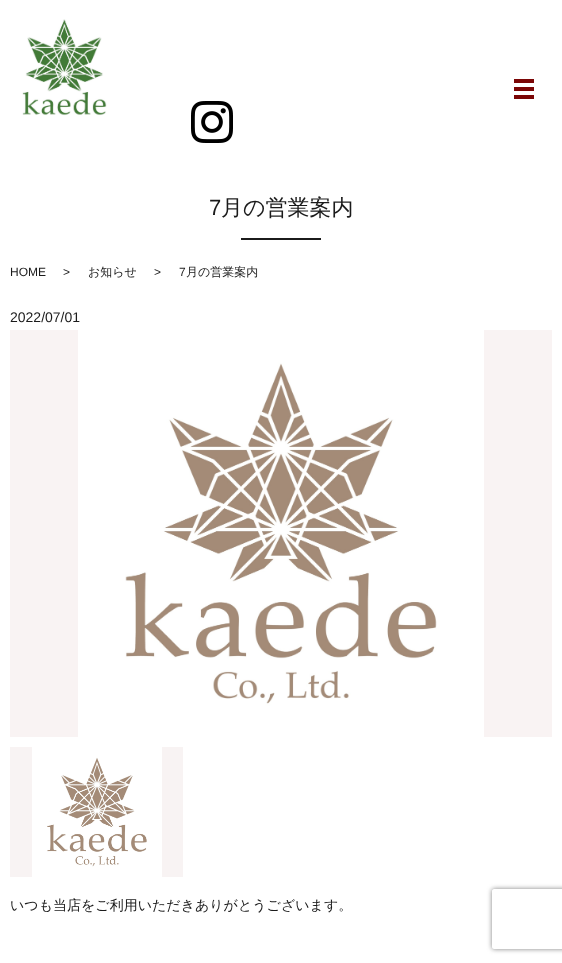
(async () => {
    const canvas = document.querySelector("canvas");
    canvas.width = 562;
    canvas.height = 963;
    const context = canvas.getContext("2d");
    context.miterLimit = 4;
    context.fontKerning = "normal";
    function write(s, x, y, font, color) {
        context.font = font;
        context.fillStyle = color;
        context.fillText(s, x, y);
    }
    function block(x, y, w, h, color) {
        context.fillStyle = color;
        context.fillRect(x, y, w, h);
    }
    async function photo(src, x, y, w, h) {
        const img = new Image();
        img.src = src;
        await img.decode();
        context.drawImage(img, x, y, w, h);
    }

    block(0, 0, 562, 963, "rgb(255, 255, 255)");
    await photo("media/1.png", 22, 19, 85, 97);
    block(514, 79, 20, 4, "rgb(123, 6, 6)");
    block(514, 87, 20, 4, "rgb(123, 6, 6)");
    block(514, 95, 20, 4, "rgb(123, 6, 6)");
    await photo("media/2.png", 191, 101, 42, 42);
    write("7", 209, 215, "22px Liberation Sans", "rgb(27, 27, 27)");
    write("月の営業案内", 221, 215, "500 22px WenQuanYi Zen Hei", "rgb(27, 27, 27)");
    block(241, 238, 80, 2, "rgb(27, 27, 27)");
    write("HOME", 10, 276, "12px Liberation Sans", "rgb(27, 27, 27)");
    write(">", 63, 276, "12px Liberation Sans", "rgb(27, 27, 27)");
    write("お知らせ", 88, 276, "500 12px WenQuanYi Zen Hei", "rgb(27, 27, 27)");
    write(">", 154, 276, "12px Liberation Sans", "rgb(27, 27, 27)");
    write("7", 179, 276, "12px Liberation Sans", "rgb(27, 27, 27)");
    write("月の営業案内", 186, 276, "500 12px WenQuanYi Zen Hei", "rgb(27, 27, 27)");
    write("2022/07/01", 10, 322, "14px Liberation Sans", "rgb(27, 27, 27)");
    block(10, 330, 542, 407, "rgb(249, 243, 243)");
    await photo("media/3.png", 78, 330, 406, 407);
    block(10, 747, 173, 130, "rgb(248, 243, 243)");
    await photo("media/4.png", 32, 747, 130, 130);
    write("いつも当店をご利用いただきありがとうございます。", 10, 910, "500 14px WenQuanYi Zen Hei", "rgb(27, 27, 27)");
    context.save();
    context.beginPath();
    context.moveTo(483, 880);
    context.lineTo(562, 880);
    context.lineTo(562, 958);
    context.lineTo(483, 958);
    context.closePath();
    context.moveTo(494, 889);
    context.lineTo(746, 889);
    context.bezierCurveTo(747, 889, 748, 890, 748, 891);
    context.lineTo(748, 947);
    context.bezierCurveTo(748, 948, 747, 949, 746, 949);
    context.lineTo(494, 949);
    context.bezierCurveTo(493, 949, 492, 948, 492, 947);
    context.lineTo(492, 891);
    context.bezierCurveTo(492, 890, 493, 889, 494, 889);
    context.closePath();
    context.clip("evenodd");
    context.fillStyle = "rgb(128, 128, 128)";
    context.filter = "blur(2.5px)";
    context.beginPath();
    context.roundRect(492, 889, 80, 60, 2);
    context.fill();
    context.filter = "none";
    context.restore();
})();
